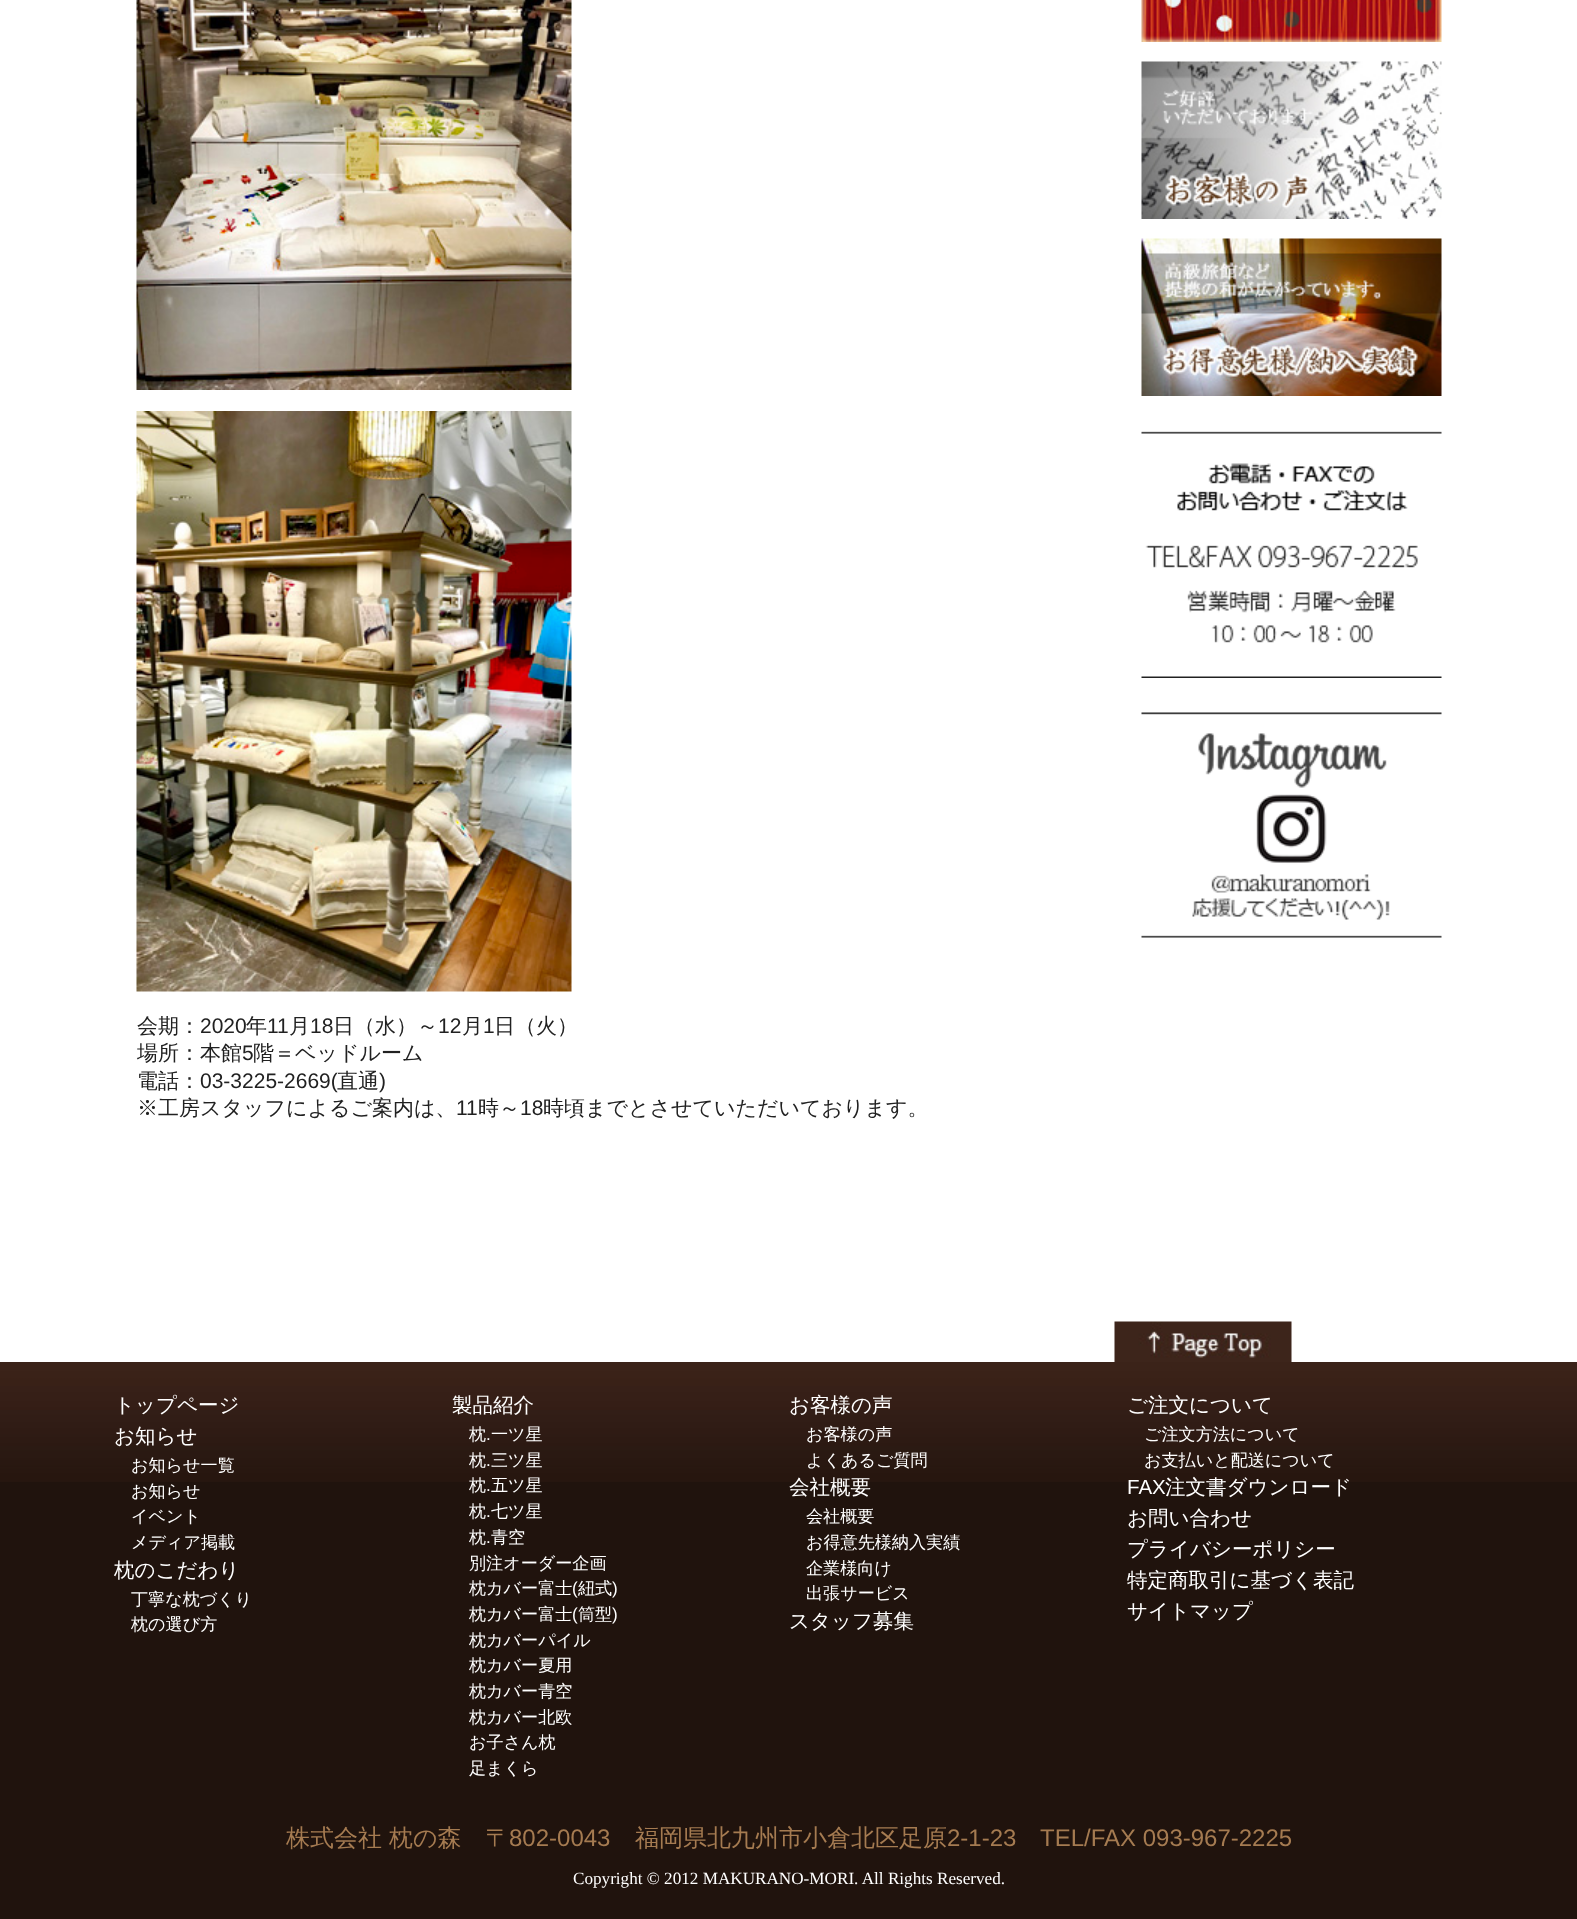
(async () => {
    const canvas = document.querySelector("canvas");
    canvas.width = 1577;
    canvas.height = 1919;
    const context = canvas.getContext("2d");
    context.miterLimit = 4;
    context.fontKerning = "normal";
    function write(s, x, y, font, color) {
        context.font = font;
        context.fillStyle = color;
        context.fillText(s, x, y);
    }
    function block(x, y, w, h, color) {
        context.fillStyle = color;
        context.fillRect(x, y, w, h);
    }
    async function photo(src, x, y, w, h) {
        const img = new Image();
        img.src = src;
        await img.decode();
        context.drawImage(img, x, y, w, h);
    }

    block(0, 0, 1577, 1919, "rgb(255, 255, 255)");
    await photo("media/1.png", 1141, 0, 301, 42);
    await photo("media/2.png", 1141, 61, 301, 158);
    await photo("media/3.png", 1141, 238, 301, 158);
    await photo("media/4.png", 1141, 431, 301, 247);
    await photo("media/5.png", 1141, 712, 301, 226);
    await photo("media/6.png", 136, 0, 436, 390);
    await photo("media/7.png", 136, 411, 436, 581);
    write("会期：", 137, 1033, "500 21px WenQuanYi Zen Hei", "rgb(33, 33, 33)");
    write("2020", 200, 1033, "21px Liberation Sans", "rgb(33, 33, 33)");
    write("年", 246, 1033, "500 21px WenQuanYi Zen Hei", "rgb(33, 33, 33)");
    write("11", 267, 1033, "21px Liberation Sans", "rgb(33, 33, 33)");
    write("月", 289, 1033, "500 21px WenQuanYi Zen Hei", "rgb(33, 33, 33)");
    write("18", 310, 1033, "21px Liberation Sans", "rgb(33, 33, 33)");
    write("日（水）～", 333, 1033, "500 21px WenQuanYi Zen Hei", "rgb(33, 33, 33)");
    write("12", 438, 1033, "21px Liberation Sans", "rgb(33, 33, 33)");
    write("月", 462, 1033, "500 21px WenQuanYi Zen Hei", "rgb(33, 33, 33)");
    write("1", 483, 1033, "21px Liberation Sans", "rgb(33, 33, 33)");
    write("日（火）", 494, 1033, "500 21px WenQuanYi Zen Hei", "rgb(33, 33, 33)");
    write("場所：本館", 137, 1060, "500 21px WenQuanYi Zen Hei", "rgb(33, 33, 33)");
    write("5", 242, 1060, "21px Liberation Sans", "rgb(33, 33, 33)");
    write("階＝ベッドルーム", 253, 1060, "500 21px WenQuanYi Zen Hei", "rgb(33, 33, 33)");
    write("電話：", 137, 1088, "500 21px WenQuanYi Zen Hei", "rgb(33, 33, 33)");
    write("03-3225-2669(", 200, 1088, "21px Liberation Sans", "rgb(33, 33, 33)");
    write("直通", 337, 1088, "500 21px WenQuanYi Zen Hei", "rgb(33, 33, 33)");
    write(")", 379, 1088, "21px Liberation Sans", "rgb(33, 33, 33)");
    write("※工房スタッフによるご案内は、", 137, 1115, "500 21px WenQuanYi Zen Hei", "rgb(33, 33, 33)");
    write("11", 456, 1115, "21px Liberation Sans", "rgb(33, 33, 33)");
    write("時～", 478, 1115, "500 21px WenQuanYi Zen Hei", "rgb(33, 33, 33)");
    write("18", 520, 1115, "21px Liberation Sans", "rgb(33, 33, 33)");
    write("時頃までとさせていただいております。", 543, 1115, "500 21px WenQuanYi Zen Hei", "rgb(33, 33, 33)");
    block(0, 1482, 1577, 437, "rgb(32, 19, 13)");
    await photo("media/8.png", 0, 1362, 1577, 120);
    await photo("media/9.png", 1114, 1321, 178, 41);
    write("トップページ", 114, 1412, "500 20.5px WenQuanYi Zen Hei", "rgb(255, 255, 255)");
    write("お知らせ", 114, 1443, "500 20.5px WenQuanYi Zen Hei", "rgb(255, 255, 255)");
    write("お知らせ一覧", 131, 1471, "500 17.1px WenQuanYi Zen Hei", "rgb(255, 255, 255)");
    write("お知らせ", 131, 1497, "500 17.1px WenQuanYi Zen Hei", "rgb(255, 255, 255)");
    write("イベント", 131, 1522, "500 17.1px WenQuanYi Zen Hei", "rgb(255, 255, 255)");
    write("メディア掲載", 131, 1548, "500 17.1px WenQuanYi Zen Hei", "rgb(255, 255, 255)");
    write("枕のこだわり", 114, 1577, "500 20.5px WenQuanYi Zen Hei", "rgb(255, 255, 255)");
    write("丁寧な枕づくり", 131, 1605, "500 17.1px WenQuanYi Zen Hei", "rgb(255, 255, 255)");
    write("枕の選び方", 131, 1630, "500 17.1px WenQuanYi Zen Hei", "rgb(255, 255, 255)");
    write("製品紹介", 452, 1412, "500 20.5px WenQuanYi Zen Hei", "rgb(255, 255, 255)");
    write("枕", 469, 1440, "500 17.1px WenQuanYi Zen Hei", "rgb(255, 255, 255)");
    write(".", 486, 1440, "17.1px Liberation Sans", "rgb(255, 255, 255)");
    write("一ツ星", 491, 1440, "500 17.1px WenQuanYi Zen Hei", "rgb(255, 255, 255)");
    write("枕", 469, 1466, "500 17.1px WenQuanYi Zen Hei", "rgb(255, 255, 255)");
    write(".", 486, 1466, "17.1px Liberation Sans", "rgb(255, 255, 255)");
    write("三ツ星", 491, 1466, "500 17.1px WenQuanYi Zen Hei", "rgb(255, 255, 255)");
    write("枕", 469, 1491, "500 17.1px WenQuanYi Zen Hei", "rgb(255, 255, 255)");
    write(".", 486, 1491, "17.1px Liberation Sans", "rgb(255, 255, 255)");
    write("五ツ星", 491, 1491, "500 17.1px WenQuanYi Zen Hei", "rgb(255, 255, 255)");
    write("枕", 469, 1517, "500 17.1px WenQuanYi Zen Hei", "rgb(255, 255, 255)");
    write(".", 486, 1517, "17.1px Liberation Sans", "rgb(255, 255, 255)");
    write("七ツ星", 491, 1517, "500 17.1px WenQuanYi Zen Hei", "rgb(255, 255, 255)");
    write("枕", 469, 1543, "500 17.1px WenQuanYi Zen Hei", "rgb(255, 255, 255)");
    write(".", 486, 1543, "17.1px Liberation Sans", "rgb(255, 255, 255)");
    write("青空", 491, 1543, "500 17.1px WenQuanYi Zen Hei", "rgb(255, 255, 255)");
    write("別注オーダー企画", 469, 1569, "500 17.1px WenQuanYi Zen Hei", "rgb(255, 255, 255)");
    write("枕カバー富士", 469, 1594, "500 17.1px WenQuanYi Zen Hei", "rgb(255, 255, 255)");
    write("(", 572, 1594, "17.1px Liberation Sans", "rgb(255, 255, 255)");
    write("紐式", 578, 1594, "500 17.1px WenQuanYi Zen Hei", "rgb(255, 255, 255)");
    write(")", 612, 1594, "17.1px Liberation Sans", "rgb(255, 255, 255)");
    write("枕カバー富士", 469, 1620, "500 17.1px WenQuanYi Zen Hei", "rgb(255, 255, 255)");
    write("(", 572, 1620, "17.1px Liberation Sans", "rgb(255, 255, 255)");
    write("筒型", 578, 1620, "500 17.1px WenQuanYi Zen Hei", "rgb(255, 255, 255)");
    write(")", 612, 1620, "17.1px Liberation Sans", "rgb(255, 255, 255)");
    write("枕カバーパイル", 469, 1646, "500 17.1px WenQuanYi Zen Hei", "rgb(255, 255, 255)");
    write("枕カバー夏用", 469, 1671, "500 17.1px WenQuanYi Zen Hei", "rgb(255, 255, 255)");
    write("枕カバー青空", 469, 1697, "500 17.1px WenQuanYi Zen Hei", "rgb(255, 255, 255)");
    write("枕カバー北欧", 469, 1723, "500 17.1px WenQuanYi Zen Hei", "rgb(255, 255, 255)");
    write("お子さん枕", 469, 1748, "500 17.1px WenQuanYi Zen Hei", "rgb(255, 255, 255)");
    write("足まくら", 469, 1774, "500 17.1px WenQuanYi Zen Hei", "rgb(255, 255, 255)");
    write("お客様の声", 789, 1412, "500 20.5px WenQuanYi Zen Hei", "rgb(255, 255, 255)");
    write("お客様の声", 806, 1440, "500 17.1px WenQuanYi Zen Hei", "rgb(255, 255, 255)");
    write("よくあるご質問", 806, 1466, "500 17.1px WenQuanYi Zen Hei", "rgb(255, 255, 255)");
    write("会社概要", 789, 1494, "500 20.5px WenQuanYi Zen Hei", "rgb(255, 255, 255)");
    write("会社概要", 806, 1522, "500 17.1px WenQuanYi Zen Hei", "rgb(255, 255, 255)");
    write("お得意先様納入実績", 806, 1548, "500 17.1px WenQuanYi Zen Hei", "rgb(255, 255, 255)");
    write("企業様向け", 806, 1574, "500 17.1px WenQuanYi Zen Hei", "rgb(255, 255, 255)");
    write("出張サービス", 806, 1599, "500 17.1px WenQuanYi Zen Hei", "rgb(255, 255, 255)");
    write("スタッフ募集", 789, 1628, "500 20.5px WenQuanYi Zen Hei", "rgb(255, 255, 255)");
    write("ご注文について", 1127, 1412, "500 20.5px WenQuanYi Zen Hei", "rgb(255, 255, 255)");
    write("ご注文方法について", 1144, 1440, "500 17.1px WenQuanYi Zen Hei", "rgb(255, 255, 255)");
    write("お支払いと配送について", 1144, 1466, "500 17.1px WenQuanYi Zen Hei", "rgb(255, 255, 255)");
    write("FAX", 1127, 1494, "20.5px Liberation Sans", "rgb(255, 255, 255)");
    write("注文書ダウンロード", 1165, 1494, "500 20.5px WenQuanYi Zen Hei", "rgb(255, 255, 255)");
    write("お問い合わせ", 1127, 1525, "500 20.5px WenQuanYi Zen Hei", "rgb(255, 255, 255)");
    write("プライバシーポリシー", 1127, 1556, "500 20.5px WenQuanYi Zen Hei", "rgb(255, 255, 255)");
    write("特定商取引に基づく表記", 1127, 1587, "500 20.5px WenQuanYi Zen Hei", "rgb(255, 255, 255)");
    write("サイトマップ", 1127, 1618, "500 20.5px WenQuanYi Zen Hei", "rgb(255, 255, 255)");
    write("株式会社", 286, 1846, "500 24px WenQuanYi Zen Hei", "rgb(165, 123, 81)");
    write("枕の森　〒", 389, 1846, "500 24px WenQuanYi Zen Hei", "rgb(165, 123, 81)");
    write("802-0043", 509, 1846, "24px Liberation Sans", "rgb(165, 123, 81)");
    write("福岡県北九州市小倉北区足原", 635, 1846, "500 24px WenQuanYi Zen Hei", "rgb(165, 123, 81)");
    write("2-1-23", 947, 1846, "24px Liberation Sans", "rgb(165, 123, 81)");
    write("TEL/FAX 093-967-2225", 1040, 1846, "24px Liberation Sans", "rgb(165, 123, 81)");
    write("Copyright © 2012 MAKURANO-MORI. All Rights Reserved.", 573, 1884, "17.15px Liberation Serif", "rgb(255, 255, 255)");
})();
